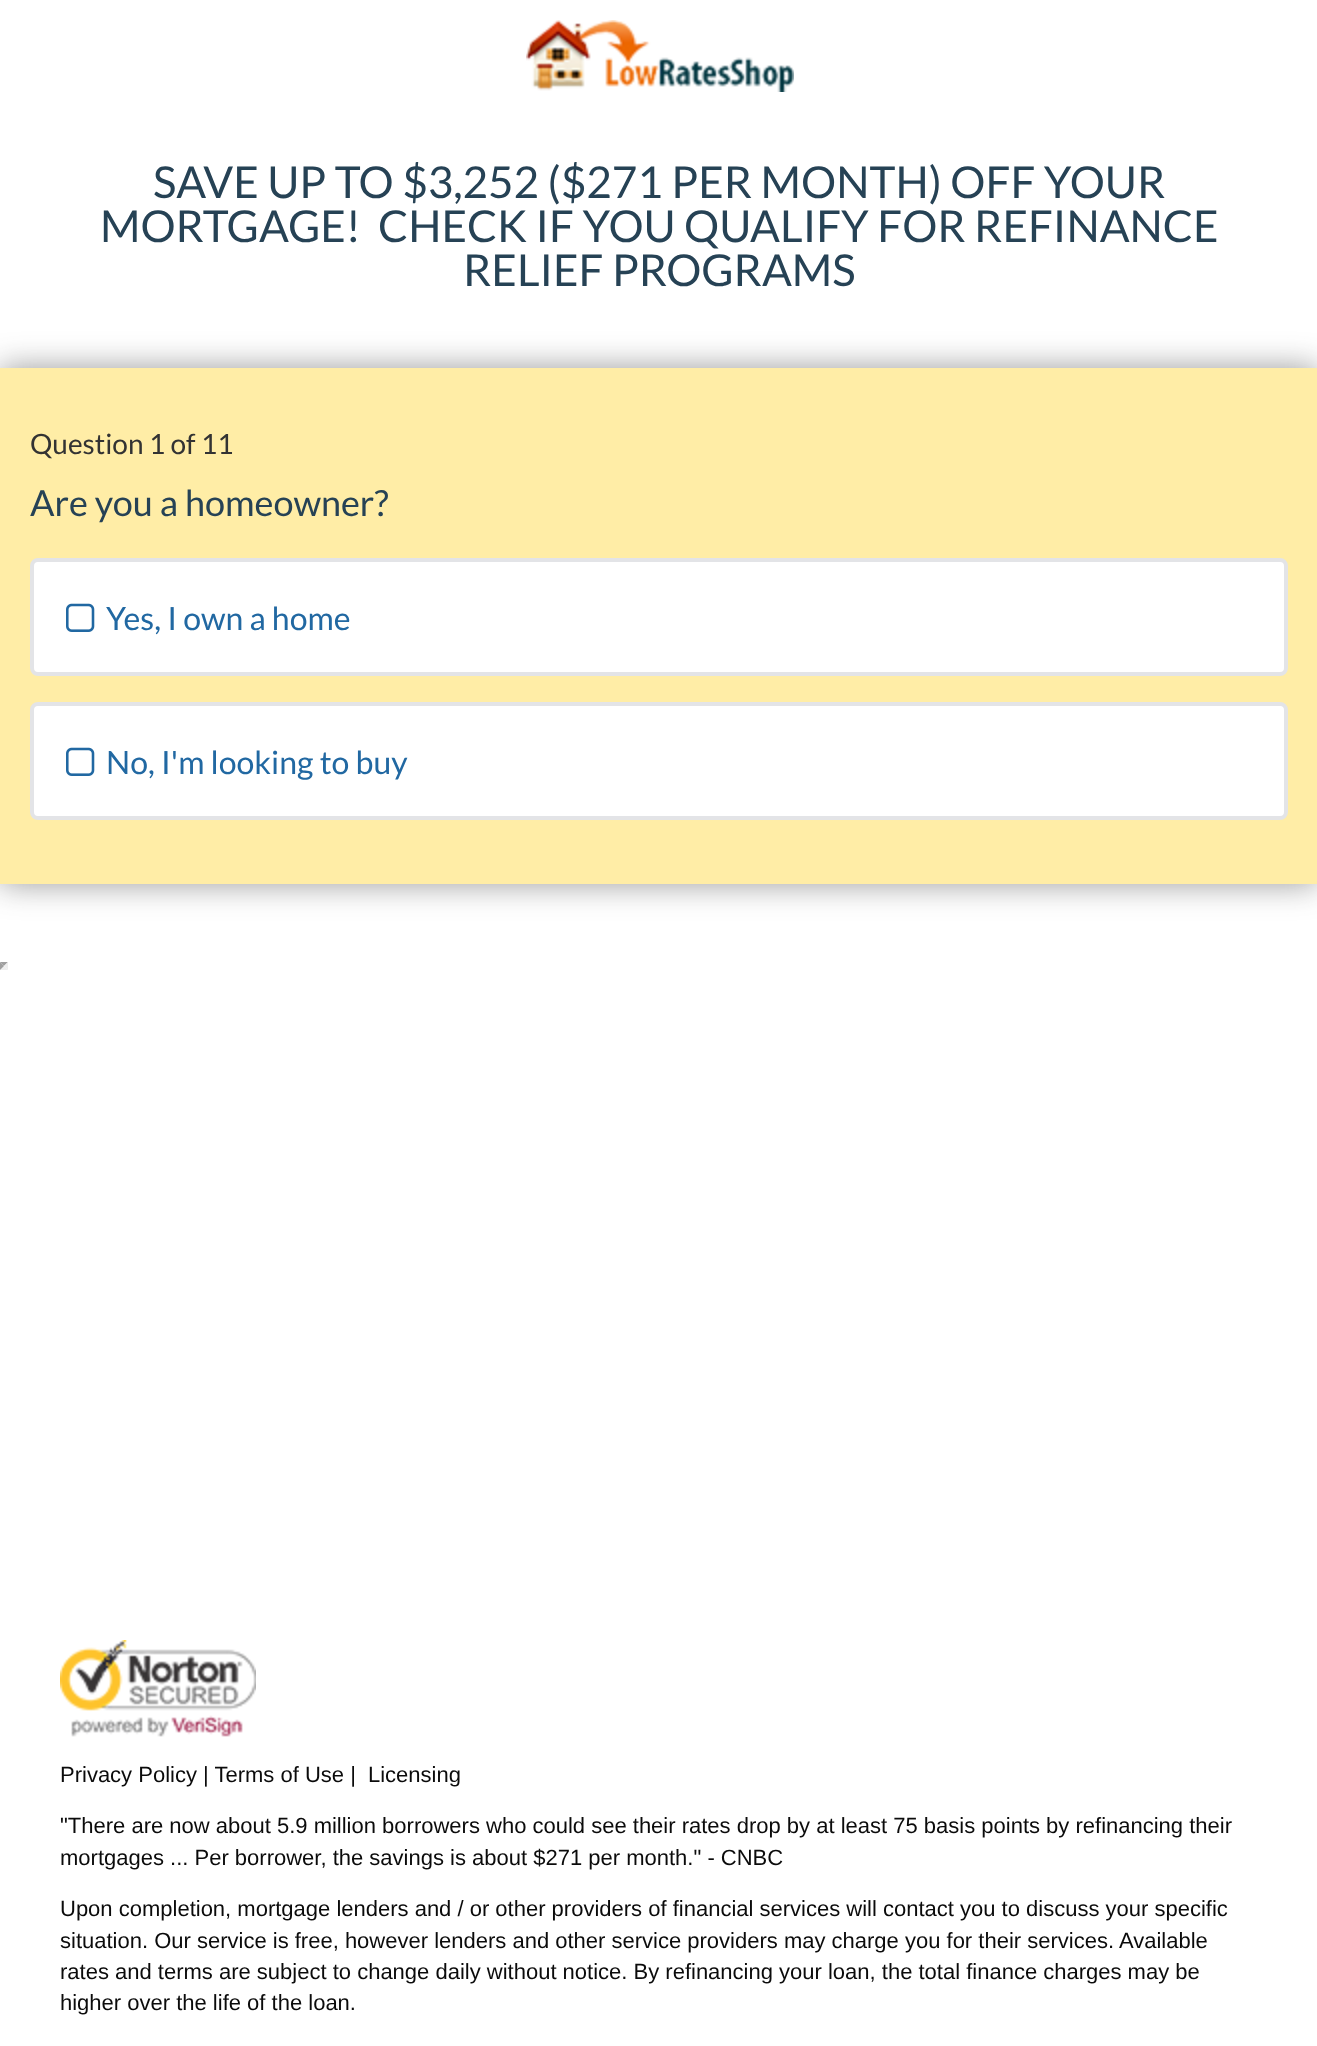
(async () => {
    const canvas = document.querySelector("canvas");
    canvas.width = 1317;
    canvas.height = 2046;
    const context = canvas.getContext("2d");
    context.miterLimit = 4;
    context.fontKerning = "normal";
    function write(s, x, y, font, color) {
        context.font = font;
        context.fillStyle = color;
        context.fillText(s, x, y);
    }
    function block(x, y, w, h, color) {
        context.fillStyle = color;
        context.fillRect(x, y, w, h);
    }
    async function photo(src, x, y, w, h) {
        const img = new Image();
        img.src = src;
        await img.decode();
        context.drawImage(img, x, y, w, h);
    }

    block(0, 0, 1317, 2046, "rgb(255, 255, 255)");
    context.fillStyle = "rgb(159, 159, 159)";
    context.beginPath();
    context.moveTo(0, 962);
    context.lineTo(8, 962);
    context.lineTo(4, 966);
    context.closePath();
    context.fill();
    await photo("media/1.png", 526, 20, 268, 72);
    write("SAVE UP TO $3,252 ($271 PER MONTH) OFF YOUR", 153, 198, "44px Lato", "rgb(38, 66, 85)");
    write("MORTGAGE!", 100, 242, "44px Lato", "rgb(38, 66, 85)");
    write("CHECK IF YOU QUALIFY FOR REFINANCE", 378, 242, "44px Lato", "rgb(38, 66, 85)");
    write("RELIEF PROGRAMS", 463, 286, "44px Lato", "rgb(38, 66, 85)");
    context.fillStyle = "rgba(50, 50, 50, 0.5)";
    context.filter = "blur(16px)";
    context.beginPath();
    context.rect(0, 368, 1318, 516);
    context.fill();
    context.filter = "none";
    block(0, 368, 1317, 516, "rgb(255, 237, 166)");
    write("Question 1 of 11", 30, 454, "28px Lato", "rgb(51, 51, 51)");
    write("Are you a homeowner?", 30, 516, "36px Lato", "rgb(38, 66, 85)");
    context.fillStyle = "rgb(255, 255, 255)";
    context.beginPath();
    context.roundRect(32, 560, 1254, 114, 6);
    context.fill();
    context.strokeStyle = "rgb(227, 228, 231)";
    context.lineWidth = 4;
    context.stroke();
    await photo("media/2.png", 66, 603, 29, 29);
    write("Yes, I own a home", 106, 630, "32px Lato", "rgb(33, 104, 162)");
    context.fillStyle = "rgb(255, 255, 255)";
    context.beginPath();
    context.roundRect(32, 704, 1254, 114, 6);
    context.fill();
    context.stroke();
    await photo("media/2.png", 66, 747, 29, 29);
    write("No, I'm looking to buy", 106, 774, "32px Lato", "rgb(33, 104, 162)");
    await photo("media/3.png", 60, 1640, 196, 97);
    write("Privacy Policy | Terms of Use |", 60, 1782, "22px Liberation Sans", "rgb(11, 11, 11)");
    write("Licensing", 368, 1782, "22px Liberation Sans", "rgb(11, 11, 11)");
    write("\"There are now about 5.9 million borrowers who could see their rates drop by at least 75 basis points by refinancing their", 60, 1833, "22px Liberation Sans", "rgb(11, 11, 11)");
    write("mortgages ... Per borrower, the savings is about $271 per month.\" - CNBC", 60, 1865, "22px Liberation Sans", "rgb(11, 11, 11)");
    write("Upon completion, mortgage lenders and / or other providers of financial services will contact you to discuss your specific", 60, 1916, "22px Liberation Sans", "rgb(11, 11, 11)");
    write("situation. Our service is free, however lenders and other service providers may charge you for their services. Available", 60, 1948, "22px Liberation Sans", "rgb(11, 11, 11)");
    write("rates and terms are subject to change daily without notice. By refinancing your loan, the total finance charges may be", 60, 1979, "22px Liberation Sans", "rgb(11, 11, 11)");
    write("higher over the life of the loan.", 60, 2010, "22px Liberation Sans", "rgb(11, 11, 11)");
    context.fillStyle = "rgb(238, 238, 238)";
    context.beginPath();
    context.moveTo(8, 962);
    context.lineTo(8, 970);
    context.lineTo(4, 966);
    context.closePath();
    context.fill();
    context.beginPath();
    context.moveTo(8, 970);
    context.lineTo(0, 970);
    context.lineTo(4, 966);
    context.closePath();
    context.fill();
    context.fillStyle = "rgb(159, 159, 159)";
    context.beginPath();
    context.moveTo(0, 970);
    context.lineTo(0, 962);
    context.lineTo(4, 966);
    context.closePath();
    context.fill();
})();
